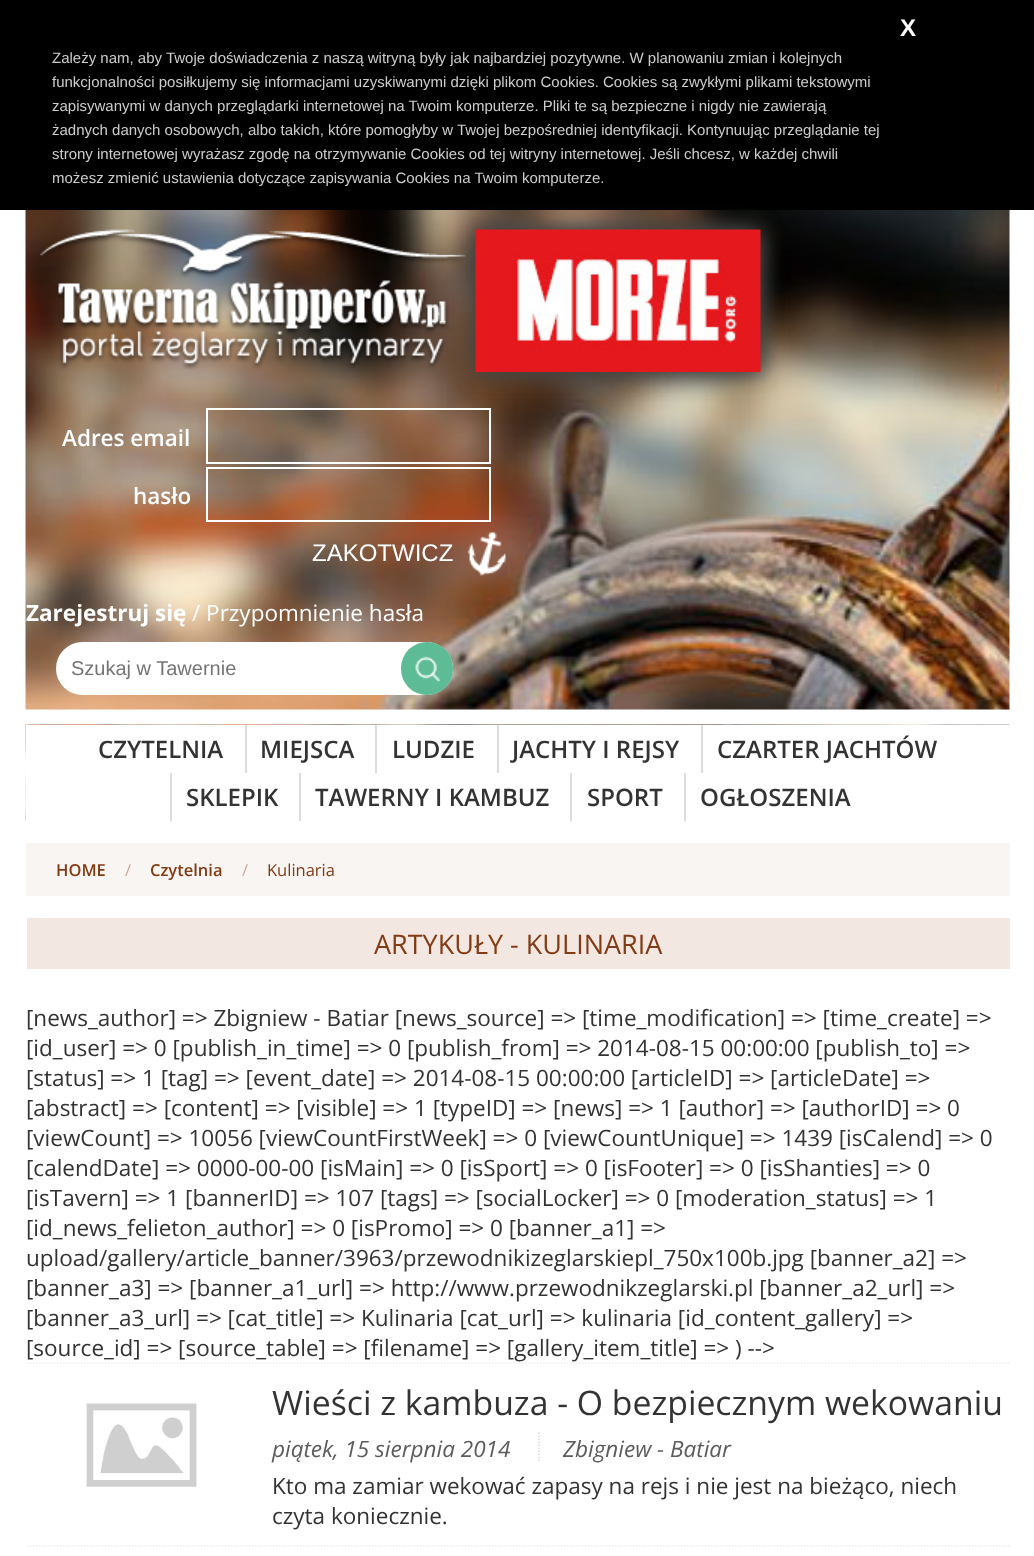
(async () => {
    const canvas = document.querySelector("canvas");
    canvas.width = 1034;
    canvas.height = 1556;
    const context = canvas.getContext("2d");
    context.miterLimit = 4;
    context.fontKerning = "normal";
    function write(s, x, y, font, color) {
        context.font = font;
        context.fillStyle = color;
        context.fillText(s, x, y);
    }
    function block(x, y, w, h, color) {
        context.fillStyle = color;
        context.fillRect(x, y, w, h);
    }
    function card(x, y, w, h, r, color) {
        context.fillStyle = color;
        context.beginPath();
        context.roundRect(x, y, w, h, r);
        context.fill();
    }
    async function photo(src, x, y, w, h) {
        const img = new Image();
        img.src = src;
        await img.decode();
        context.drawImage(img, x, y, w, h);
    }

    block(0, 0, 1034, 1556, "rgb(255, 255, 255)");
    block(0, 0, 1034, 210, "rgb(0, 0, 0)");
    write("X", 900, 36, "bold 24px Liberation Sans", "rgb(255, 255, 255)");
    write("Zależy nam, aby Twoje doświadczenia z naszą witryną były jak najbardziej pozytywne. W planowaniu zmian i kolejnych", 52, 63, "15px Liberation Sans", "rgb(204, 204, 204)");
    write("funkcjonalności posiłkujemy się informacjami uzyskiwanymi dzięki plikom Cookies. Cookies są zwykłymi plikami tekstowymi", 52, 87, "15px Liberation Sans", "rgb(204, 204, 204)");
    write("zapisywanymi w danych przeglądarki internetowej na Twoim komputerze. Pliki te są bezpieczne i nigdy nie zawierają", 52, 111, "15px Liberation Sans", "rgb(204, 204, 204)");
    write("żadnych danych osobowych, albo takich, które pomogłyby w Twojej bezpośredniej identyfikacji. Kontynuując przeglądanie tej", 52, 135, "15px Liberation Sans", "rgb(204, 204, 204)");
    write("strony internetowej wyrażasz zgodę na otrzymywanie Cookies od tej witryny internetowej. Jeśli chcesz, w każdej chwili", 52, 159, "15px Liberation Sans", "rgb(204, 204, 204)");
    write("możesz zmienić ustawienia dotyczące zapisywania Cookies na Twoim komputerze.", 52, 183, "15px Liberation Sans", "rgb(204, 204, 204)");
    await photo("media/1.png", 25, 210, 985, 500);
    await photo("media/2.png", 40, 229, 426, 141);
    context.fillStyle = "rgb(68, 68, 68)";
    context.filter = "blur(11px)";
    context.beginPath();
    context.rect(473, 227, 285, 142);
    context.fill();
    context.filter = "none";
    context.filter = "blur(11px)";
    context.beginPath();
    context.rect(479, 233, 285, 142);
    context.fill();
    context.filter = "none";
    await photo("media/3.png", 475, 229, 286, 143);
    write("Adres email", 62, 446, "600 22.5px Open Sans", "rgb(255, 255, 255)");
    context.strokeStyle = "rgb(255, 255, 255)";
    context.lineWidth = 2;
    context.strokeRect(207, 409, 283, 54);
    write("hasło", 133, 504, "600 22.5px Open Sans", "rgb(255, 255, 255)");
    context.strokeRect(207, 468, 283, 53);
    await photo("media/4.png", 468, 532, 38, 44);
    write("ZAKOTWICZ", 312, 561, "24px Liberation Sans", "rgb(255, 255, 255)");
    write("Zarejestruj się", 26, 621, "bold 22.5px Open Sans", "rgb(255, 255, 255)");
    write("/ Przypomnienie hasła", 192, 621, "22.5px Open Sans", "rgb(255, 255, 255)");
    card(56, 642, 397, 53, 26.5, "rgb(255, 255, 255)");
    write("Szukaj w Tawernie", 71, 675, "20px Liberation Sans", "rgb(117, 117, 117)");
    card(401, 642, 52, 53, 26, "rgb(93, 187, 150)");
    await photo("media/5.png", 415, 656, 25, 26);
    await photo("media/6.png", 25, 724, 985, 97);
    block(26, 725, 984, 96, "rgb(255, 255, 255)");
    write("CZYTELNIA", 98, 758, "600 24px Open Sans", "rgb(51, 51, 51)");
    block(245, 725, 2, 48, "rgb(221, 221, 221)");
    write("MIEJSCA", 260, 758, "600 24px Open Sans", "rgb(51, 51, 51)");
    block(375, 725, 2, 48, "rgb(221, 221, 221)");
    write("LUDZIE", 392, 758, "600 24px Open Sans", "rgb(51, 51, 51)");
    block(497, 725, 2, 48, "rgb(221, 221, 221)");
    write("JACHTY I REJSY", 512, 758, "600 24px Open Sans", "rgb(51, 51, 51)");
    block(701, 725, 2, 48, "rgb(221, 221, 221)");
    write("CZARTER JACHTÓW", 717, 758, "600 24px Open Sans", "rgb(51, 51, 51)");
    block(170, 773, 2, 48, "rgb(221, 221, 221)");
    write("SKLEPIK", 186, 806, "600 24px Open Sans", "rgb(51, 51, 51)");
    block(299, 773, 2, 48, "rgb(221, 221, 221)");
    write("TAWERNY I KAMBUZ", 315, 806, "600 24px Open Sans", "rgb(51, 51, 51)");
    block(570, 773, 2, 48, "rgb(221, 221, 221)");
    write("SPORT", 587, 806, "600 24px Open Sans", "rgb(51, 51, 51)");
    block(684, 773, 2, 48, "rgb(221, 221, 221)");
    write("OGŁOSZENIA", 700, 806, "600 24px Open Sans", "rgb(51, 51, 51)");
    block(26, 843, 984, 53, "rgb(249, 245, 242)");
    write("HOME", 56, 876, "600 16.5px Open Sans", "rgb(132, 58, 19)");
    write("/", 125, 876, "16.5px Open Sans", "rgb(202, 170, 153)");
    write("Czytelnia", 150, 876, "600 16.5px Open Sans", "rgb(132, 58, 19)");
    write("/", 242, 876, "16.5px Open Sans", "rgb(202, 170, 153)");
    write("Kulinaria", 267, 876, "16.5px Open Sans", "rgb(132, 58, 19)");
    block(27, 918, 983, 51, "rgb(242, 231, 225)");
    write("ARTYKUŁY - KULINARIA", 374, 954, "27px Open Sans", "rgb(132, 58, 19)");
    write("[news_author] => Zbigniew - Batiar [news_source] => [time_modification] => [time_create] =>", 26, 1026, "22.5px Open Sans", "rgb(51, 51, 51)");
    write("[id_user] => 0 [publish_in_time] => 0 [publish_from] => 2014-08-15 00:00:00 [publish_to] =>", 26, 1056, "22.5px Open Sans", "rgb(51, 51, 51)");
    write("[status] => 1 [tag] => [event_date] => 2014-08-15 00:00:00 [articleID] => [articleDate] =>", 26, 1086, "22.5px Open Sans", "rgb(51, 51, 51)");
    write("[abstract] => [content] => [visible] => 1 [typeID] => [news] => 1 [author] => [authorID] => 0", 26, 1116, "22.5px Open Sans", "rgb(51, 51, 51)");
    write("[viewCount] => 10056 [viewCountFirstWeek] => 0 [viewCountUnique] => 1439 [isCalend] => 0", 26, 1146, "22.5px Open Sans", "rgb(51, 51, 51)");
    write("[calendDate] => 0000-00-00 [isMain] => 0 [isSport] => 0 [isFooter] => 0 [isShanties] => 0", 26, 1176, "22.5px Open Sans", "rgb(51, 51, 51)");
    write("[isTavern] => 1 [bannerID] => 107 [tags] => [socialLocker] => 0 [moderation_status] => 1", 26, 1206, "22.5px Open Sans", "rgb(51, 51, 51)");
    write("[id_news_felieton_author] => 0 [isPromo] => 0 [banner_a1] =>", 26, 1236, "22.5px Open Sans", "rgb(51, 51, 51)");
    write("upload/gallery/article_banner/3963/przewodnikizeglarskiepl_750x100b.jpg [banner_a2] =>", 26, 1266, "22.5px Open Sans", "rgb(51, 51, 51)");
    write("[banner_a3] => [banner_a1_url] => http://www.przewodnikzeglarski.pl [banner_a2_url] =>", 26, 1296, "22.5px Open Sans", "rgb(51, 51, 51)");
    write("[banner_a3_url] => [cat_title] => Kulinaria [cat_url] => kulinaria [id_content_gallery] =>", 26, 1326, "22.5px Open Sans", "rgb(51, 51, 51)");
    write("[source_id] => [source_table] => [filename] => [gallery_item_title] => ) -->", 26, 1356, "22.5px Open Sans", "rgb(51, 51, 51)");
    context.beginPath();
    context.moveTo(27, 1363);
    context.lineTo(1009.5, 1363);
    context.strokeStyle = "rgb(238, 238, 238)";
    context.lineWidth = 1.5;
    context.setLineDash([1.5, 1.5]);
    context.stroke();
    await photo("media/7.png", 86, 1403, 111, 84);
    write("Wieści z kambuza - O bezpiecznym wekowaniu", 272, 1415, "33.75px Open Sans", "rgb(51, 51, 51)");
    write("piątek, 15 sierpnia 2014", 272, 1457, "italic 22.5px Open Sans", "rgb(92, 92, 92)");
    write("Zbigniew - Batiar", 563, 1457, "italic 22.5px Open Sans", "rgb(92, 92, 92)");
    context.beginPath();
    context.moveTo(539, 1432.5);
    context.lineTo(539, 1462.5);
    context.strokeStyle = "rgb(214, 214, 214)";
    context.stroke();
    write("Kto ma zamiar wekować zapasy na rejs i nie jest na bieżąco, niech", 272, 1494, "22.5px Open Sans", "rgb(51, 51, 51)");
    write("czyta koniecznie.", 272, 1524, "22.5px Open Sans", "rgb(51, 51, 51)");
    context.beginPath();
    context.moveTo(27, 1546);
    context.lineTo(1009.5, 1546);
    context.strokeStyle = "rgb(238, 238, 238)";
    context.stroke();
})();
